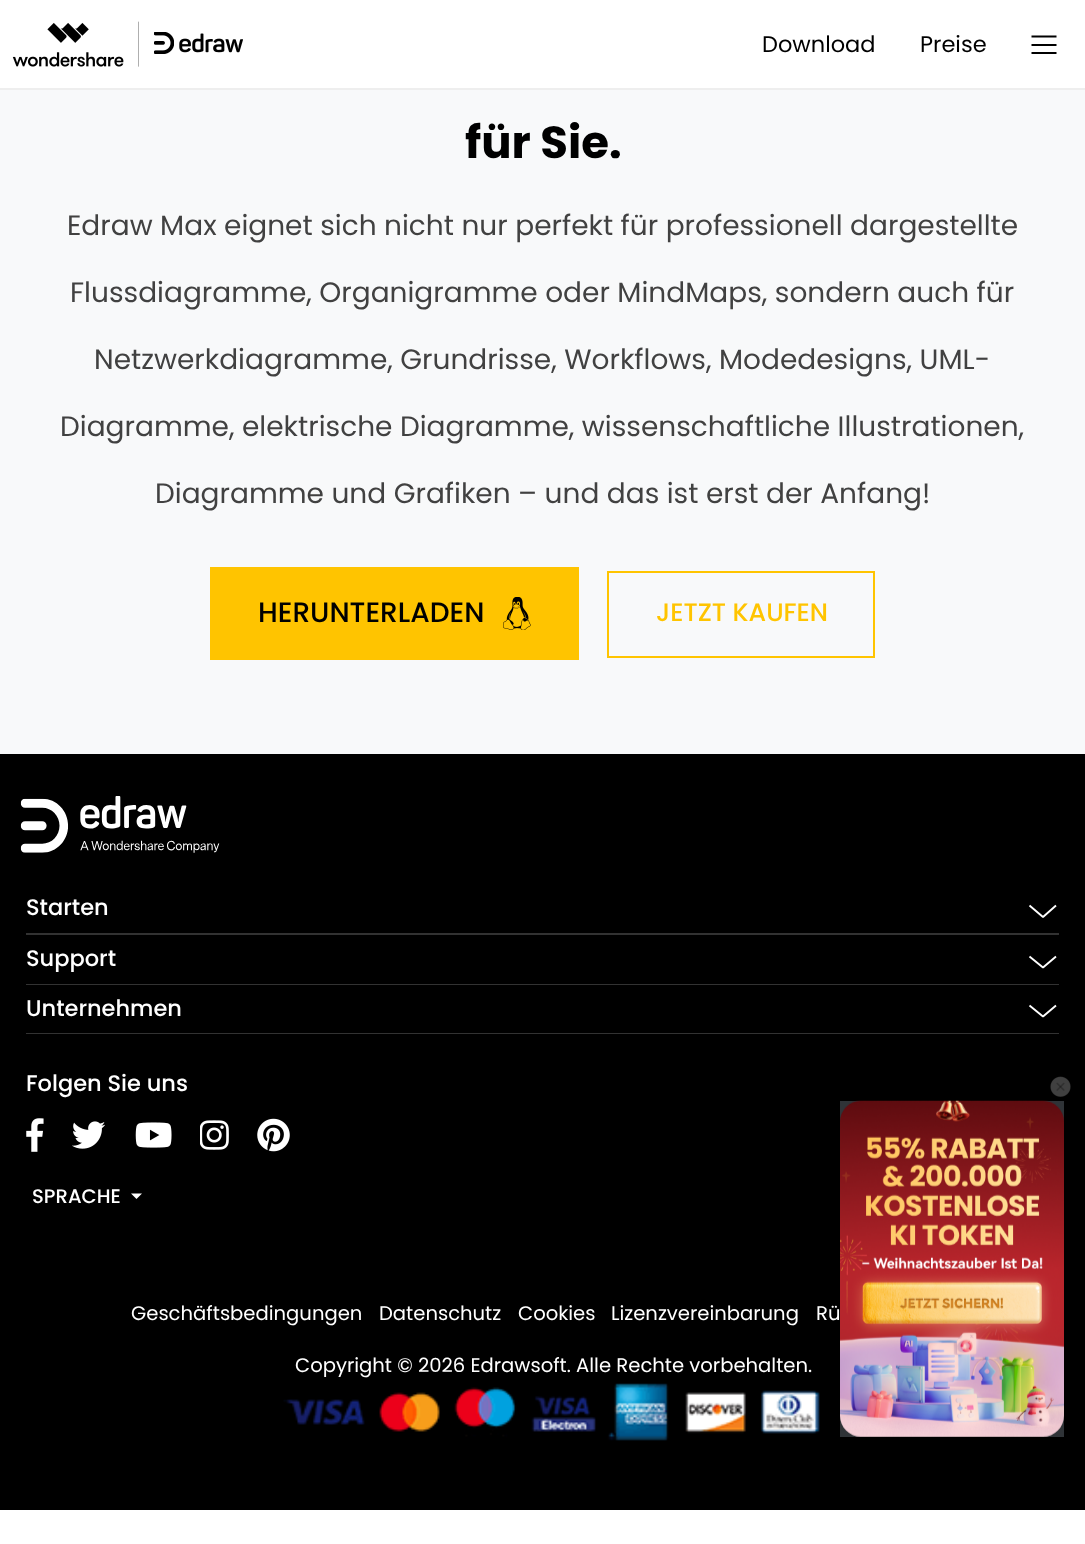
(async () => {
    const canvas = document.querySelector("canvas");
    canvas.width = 1085;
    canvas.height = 1544;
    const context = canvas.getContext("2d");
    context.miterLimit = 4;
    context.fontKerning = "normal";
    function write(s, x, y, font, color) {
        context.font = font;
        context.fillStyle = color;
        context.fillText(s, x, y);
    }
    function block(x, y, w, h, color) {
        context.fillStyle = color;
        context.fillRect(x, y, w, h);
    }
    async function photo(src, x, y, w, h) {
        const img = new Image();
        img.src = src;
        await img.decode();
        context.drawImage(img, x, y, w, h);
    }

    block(0, 0, 1085, 1544, "rgb(255, 255, 255)");
    block(0, 88, 1085, 2, "rgb(238, 238, 238)");
    await photo("media/1.png", 12, 21, 231, 46);
    write("Download", 762, 52, "22.5px Poppins", "rgb(0, 0, 0)");
    write("Preise", 920, 52, "22.5px Poppins", "rgb(0, 0, 0)");
    context.beginPath();
    context.moveTo(1031.5, 36.5);
    context.lineTo(1056.5, 36.5);
    context.moveTo(1031.5, 45);
    context.lineTo(1056.5, 45);
    context.moveTo(1031.5, 53);
    context.lineTo(1056.5, 53);
    context.strokeStyle = "rgb(0, 0, 0)";
    context.lineWidth = 2.1;
    context.lineJoin = "bevel";
    context.stroke();
    block(0, 90, 1085, 664, "rgb(248, 249, 250)");
    write("für Sie.", 465, 158, "bold 45px Poppins", "rgb(0, 0, 0)");
    write("Edraw Max eignet sich nicht nur perfekt für professionell dargestellte", 67, 235, "28px Poppins", "rgb(65, 65, 65)");
    write("Flussdiagramme, Organigramme oder MindMaps, sondern auch für", 70, 302, "28px Poppins", "rgb(65, 65, 65)");
    write("Netzwerkdiagramme, Grundrisse, Workflows, Modedesigns, UML-", 94, 369, "28px Poppins", "rgb(65, 65, 65)");
    write("Diagramme, elektrische Diagramme, wissenschaftliche Illustrationen,", 60, 436, "28px Poppins", "rgb(65, 65, 65)");
    write("Diagramme und Grafiken – und das ist erst der Anfang!", 155, 503, "28px Poppins", "rgb(65, 65, 65)");
    block(210, 567, 369, 93, "rgb(255, 196, 0)");
    write("HERUNTERLADEN", 258, 622, "500 28px Poppins", "rgb(0, 0, 0)");
    await photo("media/2.png", 503, 597, 28, 33);
    context.strokeStyle = "rgb(255, 196, 0)";
    context.lineWidth = 2;
    context.lineJoin = "miter";
    context.strokeRect(608, 572, 266, 85);
    write("JETZT KAUFEN", 656, 621, "500 25.25px Poppins", "rgb(255, 196, 0)");
    block(0, 754, 1085, 756, "rgb(0, 0, 0)");
    await photo("media/3.png", 20, 796, 200, 57);
    write("Starten", 26, 915, "500 22.5px Poppins", "rgb(255, 255, 255)");
    context.beginPath();
    context.moveTo(1056, 905.5);
    context.lineTo(1043, 917);
    context.lineTo(1029.5, 905.5);
    context.strokeStyle = "rgb(255, 255, 255)";
    context.lineWidth = 1.9;
    context.lineJoin = "bevel";
    context.stroke();
    block(26, 933, 1033, 2, "rgb(50, 50, 50)");
    write("Support", 26, 966, "500 22.5px Poppins", "rgb(255, 255, 255)");
    context.beginPath();
    context.moveTo(1056, 956.5);
    context.lineTo(1043, 967.5);
    context.lineTo(1029.5, 956.5);
    context.stroke();
    block(26, 984, 1033, 1, "rgb(50, 50, 50)");
    write("Unternehmen", 26, 1016, "500 22.5px Poppins", "rgb(255, 255, 255)");
    context.beginPath();
    context.moveTo(1056, 1005.5);
    context.lineTo(1043, 1016.5);
    context.lineTo(1029.5, 1005.5);
    context.stroke();
    block(26, 1033, 1033, 1, "rgb(50, 50, 50)");
    write("Folgen Sie uns", 26, 1091, "500 22.5px Poppins", "rgb(255, 255, 255)");
    await photo("media/4.png", 26, 1118, 18, 34);
    await photo("media/5.png", 72, 1121, 33, 28);
    await photo("media/6.png", 135, 1122, 37, 26);
    await photo("media/7.png", 200, 1120, 29, 30);
    await photo("media/8.png", 257, 1118, 33, 34);
    write("SPRACHE", 32, 1203, "500 19.6px Poppins", "rgb(255, 255, 255)");
    context.beginPath();
    context.moveTo(131, 1193.5);
    context.lineTo(142, 1193.5);
    context.lineTo(136.5, 1199);
    context.closePath();
    context.fill();
    write("Geschäftsbedingungen", 131, 1320, "19.6px Poppins", "rgb(255, 255, 255)");
    write("Datenschutz", 379, 1320, "19.6px Poppins", "rgb(255, 255, 255)");
    write("Cookies", 518, 1320, "19.6px Poppins", "rgb(255, 255, 255)");
    write("Lizenzvereinbarung", 611, 1320, "19.6px Poppins", "rgb(255, 255, 255)");
    write("Rü", 816, 1320, "19.6px Poppins", "rgb(255, 255, 255)");
    write("Copyright © 2026 Edrawsoft. Alle Rechte vorbehalten.", 295, 1372, "19.6px Poppins", "rgb(255, 255, 255)");
    await photo("media/9.png", 283, 1383, 537, 58);
    block(840, 1101, 224, 336, "rgb(47, 51, 55)");
    await photo("media/10.png", 1050, 1076, 21, 21);
    await photo("media/11.png", 840, 1100, 224, 337);
})();
